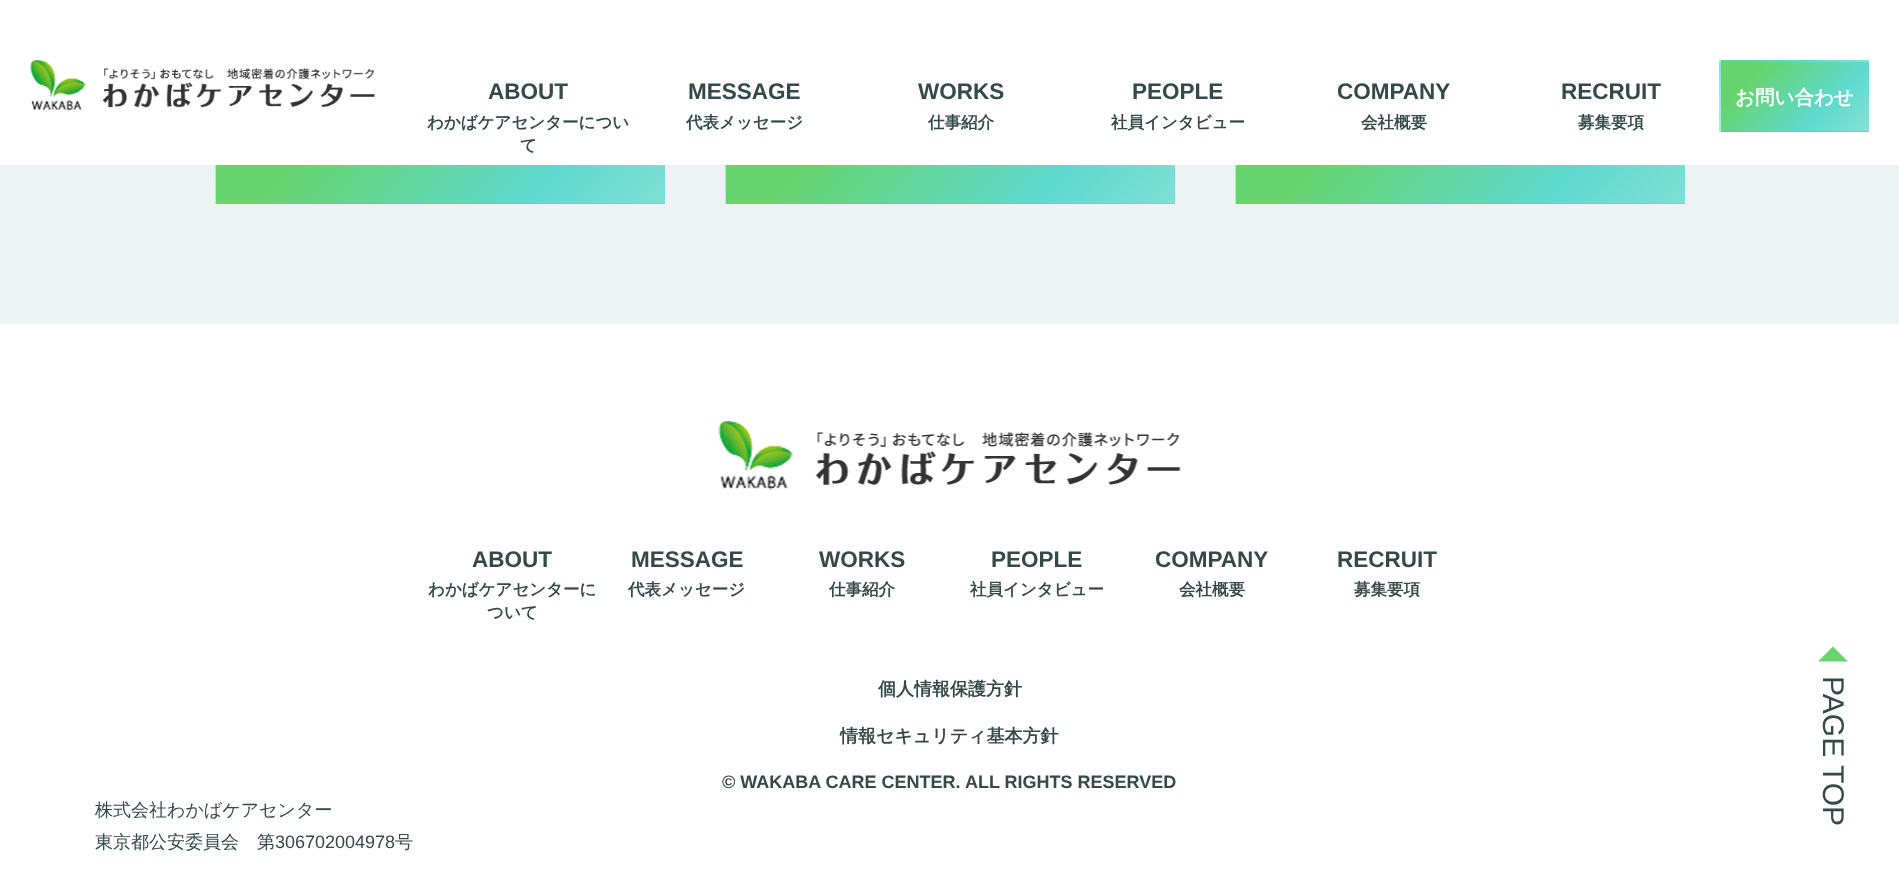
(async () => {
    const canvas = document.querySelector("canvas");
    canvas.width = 1899;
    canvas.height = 877;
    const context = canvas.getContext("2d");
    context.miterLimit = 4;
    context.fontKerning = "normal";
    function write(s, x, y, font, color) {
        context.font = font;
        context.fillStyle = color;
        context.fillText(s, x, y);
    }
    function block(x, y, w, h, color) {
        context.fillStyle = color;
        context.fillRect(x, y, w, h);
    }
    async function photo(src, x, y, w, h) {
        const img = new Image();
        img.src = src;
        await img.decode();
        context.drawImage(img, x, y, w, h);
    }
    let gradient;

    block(0, 0, 1899, 877, "rgb(255, 255, 255)");
    await photo("media/1.png", 30, 60, 345, 51);
    write("ABOUT", 488, 99, "bold 22.5px Liberation Sans", "rgb(53, 74, 72)");
    write("わかばケアセンターについ", 427, 128, "bold 16.5px WenQuanYi Zen Hei", "rgb(53, 74, 72)");
    write("て", 520, 151, "bold 16.5px WenQuanYi Zen Hei", "rgb(53, 74, 72)");
    write("MESSAGE", 688, 99, "bold 22.5px Liberation Sans", "rgb(53, 74, 72)");
    write("代表メッセージ", 686, 128, "bold 16.5px WenQuanYi Zen Hei", "rgb(53, 74, 72)");
    write("WORKS", 918, 99, "bold 22.5px Liberation Sans", "rgb(53, 74, 72)");
    write("仕事紹介", 928, 128, "bold 16.5px WenQuanYi Zen Hei", "rgb(53, 74, 72)");
    write("PEOPLE", 1132, 99, "bold 22.5px Liberation Sans", "rgb(53, 74, 72)");
    write("社員インタビュー", 1111, 128, "bold 16.5px WenQuanYi Zen Hei", "rgb(53, 74, 72)");
    write("COMPANY", 1337, 99, "bold 22.5px Liberation Sans", "rgb(53, 74, 72)");
    write("会社概要", 1361, 128, "bold 16.5px WenQuanYi Zen Hei", "rgb(53, 74, 72)");
    write("RECRUIT", 1561, 99, "bold 22.5px Liberation Sans", "rgb(53, 74, 72)");
    write("募集要項", 1578, 128, "bold 16.5px WenQuanYi Zen Hei", "rgb(53, 74, 72)");
    gradient = context.createLinearGradient(1538, -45, 1683, 99);
    gradient.addColorStop(0.17, "rgb(102, 212, 110)");
    gradient.addColorStop(0.52, "rgb(94, 217, 207)");
    gradient.addColorStop(1, "rgb(178, 234, 220)");
    context.fillStyle = gradient;
    context.fillRect(1719, 60, 2, 2);
    gradient = context.createLinearGradient(1758, -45, 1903, 99);
    gradient.addColorStop(0.17, "rgb(102, 212, 110)");
    gradient.addColorStop(0.52, "rgb(94, 217, 207)");
    gradient.addColorStop(1, "rgb(178, 234, 220)");
    context.fillStyle = gradient;
    context.fillRect(1721, 60, 148, 2);
    gradient = context.createLinearGradient(1538, 24, 1683, 168);
    gradient.addColorStop(0.17, "rgb(102, 212, 110)");
    gradient.addColorStop(0.52, "rgb(94, 217, 207)");
    gradient.addColorStop(1, "rgb(178, 234, 220)");
    context.fillStyle = gradient;
    context.fillRect(1719, 62, 2, 69);
    gradient = context.createLinearGradient(1758, 24, 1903, 168);
    gradient.addColorStop(0.17, "rgb(102, 212, 110)");
    gradient.addColorStop(0.52, "rgb(94, 217, 207)");
    gradient.addColorStop(1, "rgb(178, 234, 220)");
    context.fillStyle = gradient;
    context.fillRect(1721, 62, 148, 69);
    gradient = context.createLinearGradient(1538, 93, 1683, 237);
    gradient.addColorStop(0.17, "rgb(102, 212, 110)");
    gradient.addColorStop(0.52, "rgb(94, 217, 207)");
    gradient.addColorStop(1, "rgb(178, 234, 220)");
    context.fillStyle = gradient;
    context.fillRect(1719, 131, 2, 1);
    gradient = context.createLinearGradient(1758, 93, 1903, 237);
    gradient.addColorStop(0.17, "rgb(102, 212, 110)");
    gradient.addColorStop(0.52, "rgb(94, 217, 207)");
    gradient.addColorStop(1, "rgb(178, 234, 220)");
    context.fillStyle = gradient;
    context.fillRect(1721, 131, 148, 1);
    write("お問い合わせ", 1735, 104, "bold 19.5px WenQuanYi Zen Hei", "rgb(255, 255, 255)");
    block(0, 165, 1899, 159, "rgb(236, 243, 242)");
    gradient = context.createLinearGradient(-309, -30, 70, 348);
    gradient.addColorStop(0.17, "rgb(102, 212, 110)");
    gradient.addColorStop(0.52, "rgb(94, 217, 207)");
    gradient.addColorStop(1, "rgb(178, 234, 220)");
    context.fillStyle = gradient;
    context.fillRect(215, 165, 1, 38);
    gradient = context.createLinearGradient(362, -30, 741, 348);
    gradient.addColorStop(0.17, "rgb(102, 212, 110)");
    gradient.addColorStop(0.52, "rgb(94, 217, 207)");
    gradient.addColorStop(1, "rgb(178, 234, 220)");
    context.fillStyle = gradient;
    context.fillRect(216, 165, 449, 38);
    gradient = context.createLinearGradient(-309, 57, 70, 435);
    gradient.addColorStop(0.17, "rgb(102, 212, 110)");
    gradient.addColorStop(0.52, "rgb(94, 217, 207)");
    gradient.addColorStop(1, "rgb(178, 234, 220)");
    context.fillStyle = gradient;
    context.fillRect(215, 203, 1, 1);
    gradient = context.createLinearGradient(362, 57, 741, 435);
    gradient.addColorStop(0.17, "rgb(102, 212, 110)");
    gradient.addColorStop(0.52, "rgb(94, 217, 207)");
    gradient.addColorStop(1, "rgb(178, 234, 220)");
    context.fillStyle = gradient;
    context.fillRect(216, 203, 449, 1);
    gradient = context.createLinearGradient(201, -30, 580, 348);
    gradient.addColorStop(0.17, "rgb(102, 212, 110)");
    gradient.addColorStop(0.52, "rgb(94, 217, 207)");
    gradient.addColorStop(1, "rgb(178, 234, 220)");
    context.fillStyle = gradient;
    context.fillRect(725, 165, 1, 38);
    gradient = context.createLinearGradient(872, -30, 1251, 348);
    gradient.addColorStop(0.17, "rgb(102, 212, 110)");
    gradient.addColorStop(0.52, "rgb(94, 217, 207)");
    gradient.addColorStop(1, "rgb(178, 234, 220)");
    context.fillStyle = gradient;
    context.fillRect(726, 165, 449, 38);
    gradient = context.createLinearGradient(201, 57, 580, 435);
    gradient.addColorStop(0.17, "rgb(102, 212, 110)");
    gradient.addColorStop(0.52, "rgb(94, 217, 207)");
    gradient.addColorStop(1, "rgb(178, 234, 220)");
    context.fillStyle = gradient;
    context.fillRect(725, 203, 1, 1);
    gradient = context.createLinearGradient(872, 57, 1251, 435);
    gradient.addColorStop(0.17, "rgb(102, 212, 110)");
    gradient.addColorStop(0.52, "rgb(94, 217, 207)");
    gradient.addColorStop(1, "rgb(178, 234, 220)");
    context.fillStyle = gradient;
    context.fillRect(726, 203, 449, 1);
    gradient = context.createLinearGradient(711, -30, 1090, 348);
    gradient.addColorStop(0.17, "rgb(102, 212, 110)");
    gradient.addColorStop(0.52, "rgb(94, 217, 207)");
    gradient.addColorStop(1, "rgb(178, 234, 220)");
    context.fillStyle = gradient;
    context.fillRect(1235, 165, 1, 38);
    gradient = context.createLinearGradient(1382, -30, 1761, 348);
    gradient.addColorStop(0.17, "rgb(102, 212, 110)");
    gradient.addColorStop(0.52, "rgb(94, 217, 207)");
    gradient.addColorStop(1, "rgb(178, 234, 220)");
    context.fillStyle = gradient;
    context.fillRect(1236, 165, 449, 38);
    gradient = context.createLinearGradient(711, 57, 1090, 435);
    gradient.addColorStop(0.17, "rgb(102, 212, 110)");
    gradient.addColorStop(0.52, "rgb(94, 217, 207)");
    gradient.addColorStop(1, "rgb(178, 234, 220)");
    context.fillStyle = gradient;
    context.fillRect(1235, 203, 1, 1);
    gradient = context.createLinearGradient(1382, 57, 1761, 435);
    gradient.addColorStop(0.17, "rgb(102, 212, 110)");
    gradient.addColorStop(0.52, "rgb(94, 217, 207)");
    gradient.addColorStop(1, "rgb(178, 234, 220)");
    context.fillStyle = gradient;
    context.fillRect(1236, 203, 449, 1);
    await photo("media/2.png", 718, 421, 463, 69);
    write("ABOUT", 472, 567, "bold 22.5px Liberation Sans", "rgb(53, 74, 72)");
    write("わかばケアセンターに", 428, 595, "bold 16.5px WenQuanYi Zen Hei", "rgb(53, 74, 72)");
    write("ついて", 487, 618, "bold 16.5px WenQuanYi Zen Hei", "rgb(53, 74, 72)");
    write("MESSAGE", 631, 567, "bold 22.5px Liberation Sans", "rgb(53, 74, 72)");
    write("代表メッセージ", 628, 595, "bold 16.5px WenQuanYi Zen Hei", "rgb(53, 74, 72)");
    write("WORKS", 819, 567, "bold 22.5px Liberation Sans", "rgb(53, 74, 72)");
    write("仕事紹介", 829, 595, "bold 16.5px WenQuanYi Zen Hei", "rgb(53, 74, 72)");
    write("PEOPLE", 991, 567, "bold 22.5px Liberation Sans", "rgb(53, 74, 72)");
    write("社員インタビュー", 970, 595, "bold 16.5px WenQuanYi Zen Hei", "rgb(53, 74, 72)");
    write("COMPANY", 1155, 567, "bold 22.5px Liberation Sans", "rgb(53, 74, 72)");
    write("会社概要", 1179, 595, "bold 16.5px WenQuanYi Zen Hei", "rgb(53, 74, 72)");
    write("RECRUIT", 1337, 567, "bold 22.5px Liberation Sans", "rgb(53, 74, 72)");
    write("募集要項", 1354, 595, "bold 16.5px WenQuanYi Zen Hei", "rgb(53, 74, 72)");
    write("個人情報保護方針", 878, 695, "bold 18px WenQuanYi Zen Hei", "rgb(53, 74, 72)");
    write("情報セキュリティ基本方針", 840, 742, "bold 18px WenQuanYi Zen Hei", "rgb(53, 74, 72)");
    write("© WAKABA CARE CENTER. ALL RIGHTS RESERVED", 722, 788, "bold 18px Liberation Sans", "rgb(53, 74, 72)");
    write("株式会社わかばケアセンター", 95, 816, "500 18px WenQuanYi Zen Hei", "rgb(53, 74, 72)");
    write("東京都公安委員会　第", 95, 848, "500 18px WenQuanYi Zen Hei", "rgb(53, 74, 72)");
    write("306702004978", 275, 848, "18px Liberation Sans", "rgb(53, 74, 72)");
    write("号", 395, 848, "500 18px WenQuanYi Zen Hei", "rgb(53, 74, 72)");
    context.fillStyle = "rgb(102, 212, 110)";
    context.beginPath();
    context.moveTo(1848, 661.5);
    context.lineTo(1818, 661.5);
    context.lineTo(1833, 646.5);
    context.closePath();
    context.fill();
    context.font = "30px Liberation Sans";
    context.fillStyle = "rgb(53, 74, 72)";
    context.save();
    context.translate(1823, 676);
    context.rotate(90 * Math.PI / 180);
    context.fillText("PAGE TOP", 0, 0);
    context.restore();
})();
